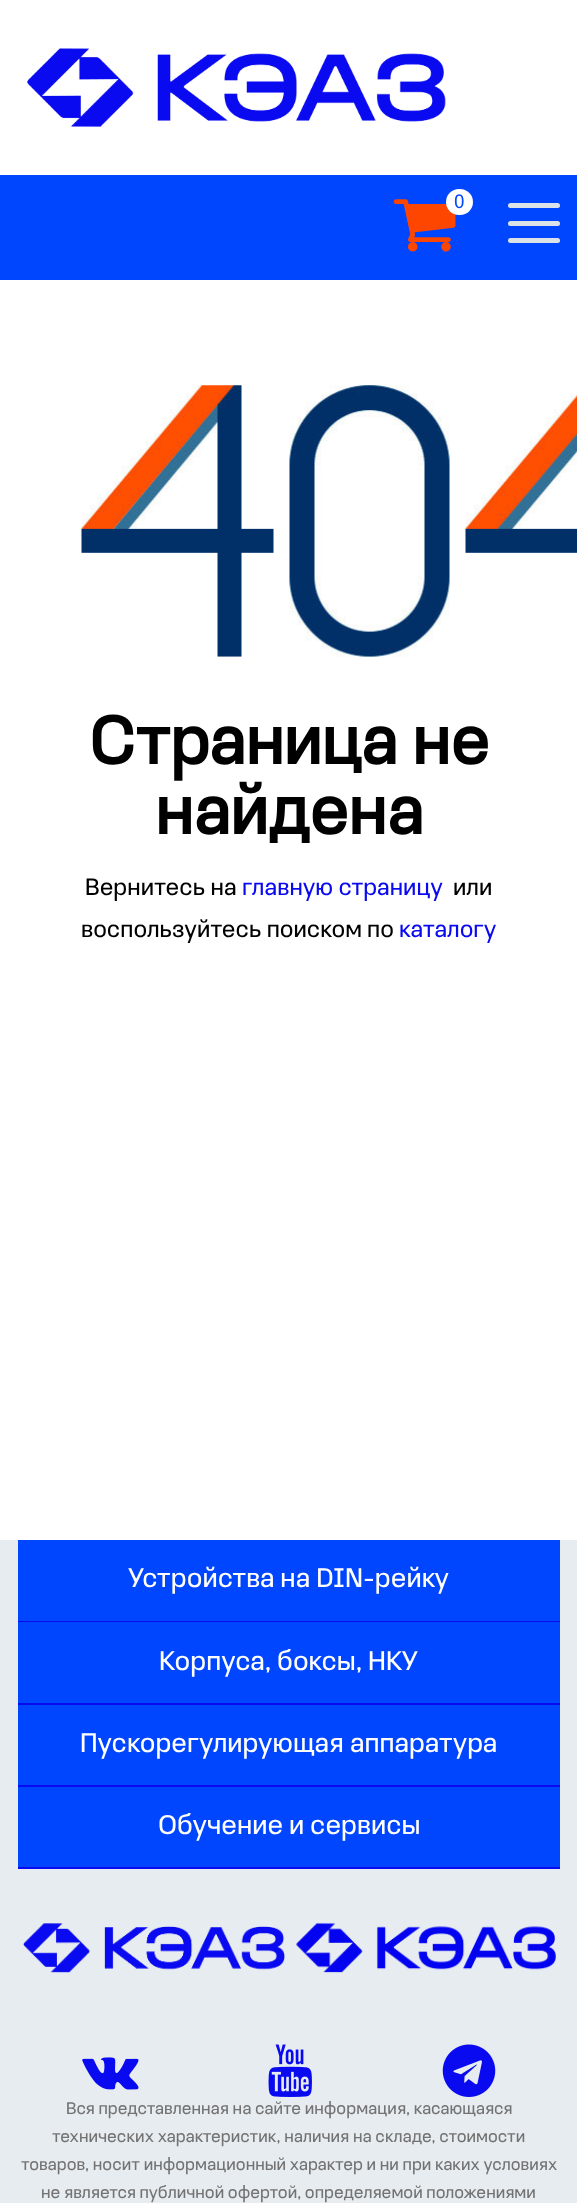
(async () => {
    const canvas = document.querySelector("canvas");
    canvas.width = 577;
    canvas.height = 2203;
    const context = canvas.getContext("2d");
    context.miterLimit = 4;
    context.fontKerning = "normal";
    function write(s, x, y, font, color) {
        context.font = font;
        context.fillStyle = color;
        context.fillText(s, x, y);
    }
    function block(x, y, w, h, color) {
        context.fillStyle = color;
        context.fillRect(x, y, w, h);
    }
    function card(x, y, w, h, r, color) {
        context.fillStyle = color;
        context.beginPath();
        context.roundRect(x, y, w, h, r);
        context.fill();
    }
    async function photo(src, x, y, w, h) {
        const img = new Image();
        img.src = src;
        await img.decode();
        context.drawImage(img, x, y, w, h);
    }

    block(0, 0, 577, 2203, "rgb(255, 255, 255)");
    await photo("media/1.png", 27, 48, 419, 79);
    block(0, 175, 577, 105, "rgb(0, 70, 255)");
    card(508, 203, 52, 5, 2.5, "rgb(219, 227, 233)");
    card(508, 221, 52, 5, 2.5, "rgb(219, 227, 233)");
    card(508, 238, 52, 5, 2.5, "rgb(219, 227, 233)");
    await photo("media/2.png", 393, 199, 63, 53);
    card(446, 189, 27, 26, 13, "rgb(255, 255, 255)");
    write("0", 454, 208, "19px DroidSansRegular", "rgb(0, 70, 255)");
    await photo("media/3.png", 81, 385, 496, 272);
    write("Страница не", 89, 764, "bold 70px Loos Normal", "rgb(0, 0, 0)");
    write("найдена", 155, 834, "bold 70px Loos Normal", "rgb(0, 0, 0)");
    write("Вернитесь на", 85, 895, "24.5px Loos Normal", "rgb(0, 0, 0)");
    write("главную страницу", 242, 895, "24.5px Loos Normal", "rgb(10, 10, 240)");
    write("или", 453, 895, "24.5px Loos Normal", "rgb(0, 0, 0)");
    write("воспользуйтесь поиском по", 81, 937, "24.5px Loos Normal", "rgb(0, 0, 0)");
    write("каталогу", 399, 937, "24.5px Loos Normal", "rgb(10, 10, 240)");
    block(0, 1540, 577, 663, "rgb(231, 236, 240)");
    block(18, 1540, 542, 81, "rgb(0, 70, 255)");
    block(18, 1621, 542, 1, "rgb(10, 10, 240)");
    write("Устройства на DIN-рейку", 128, 1587, "28px Loos Normal", "rgb(255, 255, 255)");
    block(18, 1622, 542, 81, "rgb(0, 70, 255)");
    block(18, 1703, 542, 2, "rgb(10, 10, 240)");
    write("Корпуса, боксы, НКУ", 159, 1670, "28px Loos Normal", "rgb(255, 255, 255)");
    block(18, 1705, 542, 80, "rgb(0, 70, 255)");
    block(18, 1785, 542, 2, "rgb(10, 10, 240)");
    write("Пускорегулирующая аппаратура", 80, 1752, "28px Loos Normal", "rgb(255, 255, 255)");
    block(18, 1787, 542, 80, "rgb(0, 70, 255)");
    block(18, 1867, 542, 2, "rgb(10, 10, 240)");
    write("Обучение и сервисы", 158, 1834, "28px Loos Normal", "rgb(255, 255, 255)");
    await photo("media/4.png", 23, 1923, 262, 50);
    await photo("media/5.png", 296, 1922, 260, 51);
    await photo("media/6.png", 82, 2057, 57, 33);
    await photo("media/7.png", 268, 2044, 44, 53);
    await photo("media/8.png", 442, 2044, 54, 53);
    write("Вся представленная на сайте информация, касающаяся", 66, 2114, "17.5px Loos Normal", "rgb(115, 115, 115)");
    write("технических характеристик, наличия на складе, стоимости", 52, 2142, "17.5px Loos Normal", "rgb(115, 115, 115)");
    write("товаров, носит информационный характер и ни при каких условиях", 21, 2170, "17.5px Loos Normal", "rgb(115, 115, 115)");
    write("не является публичной офертой, определяемой положениями", 41, 2198, "17.5px Loos Normal", "rgb(115, 115, 115)");
})();
